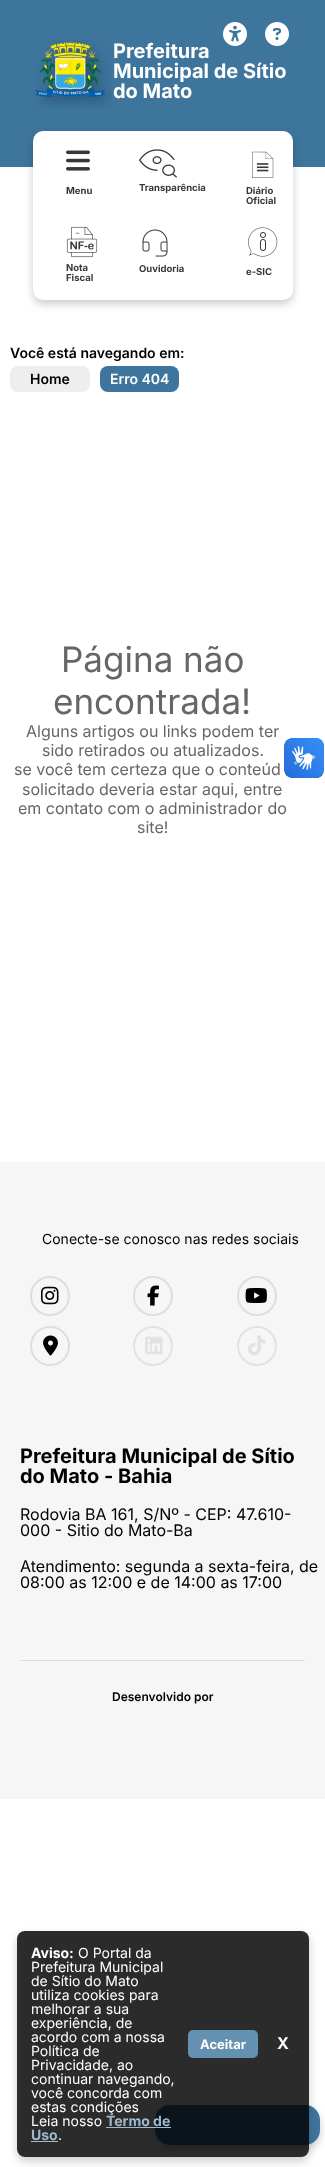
(async () => {
    const canvas = document.querySelector("canvas");
    canvas.width = 325;
    canvas.height = 2167;
    const context = canvas.getContext("2d");
    context.miterLimit = 4;
    context.fontKerning = "normal";
    function write(s, x, y, font, color) {
        context.font = font;
        context.fillStyle = color;
        context.fillText(s, x, y);
    }
    function block(x, y, w, h, color) {
        context.fillStyle = color;
        context.fillRect(x, y, w, h);
    }
    function card(x, y, w, h, r, color) {
        context.fillStyle = color;
        context.beginPath();
        context.roundRect(x, y, w, h, r);
        context.fill();
    }
    async function photo(src, x, y, w, h) {
        const img = new Image();
        img.src = src;
        await img.decode();
        context.drawImage(img, x, y, w, h);
    }

    block(0, 0, 325, 2167, "rgb(255, 255, 255)");
    block(0, 0, 325, 167, "rgb(62, 117, 157)");
    await photo("media/1.png", 223, 22, 24, 24);
    await photo("media/2.png", 265, 22, 24, 24);
    await photo("media/3.png", 35, 40, 77, 69);
    write("Prefeitura", 113, 58, "bold 20px Inter", "rgb(255, 255, 255)");
    write("Municipal de Sítio", 113, 78, "bold 20px Inter", "rgb(255, 255, 255)");
    write("do Mato", 113, 98, "bold 20px Inter", "rgb(255, 255, 255)");
    context.fillStyle = "rgba(0, 0, 0, 0.2)";
    context.filter = "blur(4px)";
    context.beginPath();
    context.roundRect(33, 135, 260, 169, 10);
    context.fill();
    context.filter = "none";
    card(33, 131, 260, 169, 10, "rgb(255, 255, 255)");
    await photo("media/4.png", 66, 150, 24, 21);
    write("Menu", 66, 194, "bold 9.5px Inter", "rgb(56, 56, 56)");
    await photo("media/5.png", 139, 149, 38, 29);
    write("Transparência", 139, 191, "bold 9.5px Inter", "rgb(56, 56, 56)");
    await photo("media/6.png", 252, 151, 22, 27);
    write("Diário", 246, 194, "bold 9.5px Inter", "rgb(56, 56, 56)");
    write("Oficial", 246, 204, "bold 9.5px Inter", "rgb(56, 56, 56)");
    await photo("media/7.png", 66, 226, 32, 32);
    write("Nota", 66, 271, "bold 9.5px Inter", "rgb(56, 56, 56)");
    write("Fiscal", 66, 281, "bold 9.5px Inter", "rgb(56, 56, 56)");
    await photo("media/8.png", 142, 229, 26, 28);
    write("Ouvidoria", 139, 272, "bold 9.5px Inter", "rgb(56, 56, 56)");
    await photo("media/9.png", 248, 227, 30, 30);
    write("e-SIC", 246, 275, "bold 9.5px Inter", "rgb(56, 56, 56)");
    context.fillStyle = "rgba(0, 0, 0, 0.2)";
    context.filter = "blur(4px)";
    context.beginPath();
    context.roundRect(155, 2109, 165, 40, 15);
    context.fill();
    context.filter = "none";
    card(155, 2105, 165, 40, 15, "rgb(62, 117, 157)");
    write("Você está navegando em:", 10, 358, "600 14px Inter", "rgb(0, 0, 0)");
    card(10, 366, 80, 26, 8, "rgb(238, 238, 238)");
    write("Home", 30, 384, "600 14px Inter", "rgb(0, 0, 0)");
    card(100, 366, 79, 26, 8, "rgb(62, 117, 157)");
    write("Erro 404", 110, 384, "600 14px Inter", "rgb(255, 255, 255)");
    write("Página não", 61, 672, "35px Inter", "rgb(102, 102, 102)");
    write("encontrada!", 53, 714, "35px Inter", "rgb(102, 102, 102)");
    write("Alguns artigos ou links podem ter", 26, 737, "16px Inter", "rgb(102, 102, 102)");
    write("sido retirados ou atualizados.", 42, 756, "16px Inter", "rgb(102, 102, 102)");
    write("se você tem certeza que o conteúd", 14, 775, "16px Inter", "rgb(102, 102, 102)");
    write("solicitado deveria estar aqui, entre", 22, 795, "16px Inter", "rgb(102, 102, 102)");
    write("em contato com o administrador do", 18, 814, "16px Inter", "rgb(102, 102, 102)");
    write("site!", 137, 833, "16px Inter", "rgb(102, 102, 102)");
    await photo("media/10.png", 284, 738, 40, 40);
    await photo("media/11.png", 284, 738, 40, 40);
    block(0, 1162, 325, 637, "rgb(246, 246, 246)");
    write("Conecte-se conosco nas redes sociais", 42, 1244, "14px Inter", "rgb(0, 0, 0)");
    context.beginPath();
    context.arc(50, 1296, 19, 0, Math.PI * 2);
    context.strokeStyle = "rgb(222, 222, 222)";
    context.lineWidth = 2;
    context.stroke();
    await photo("media/12.png", 41, 1286, 18, 19);
    context.beginPath();
    context.arc(153, 1296, 19, 0, Math.PI * 2);
    context.stroke();
    await photo("media/13.png", 147, 1285, 12, 21);
    context.beginPath();
    context.arc(257, 1296, 19, 0, Math.PI * 2);
    context.stroke();
    await photo("media/14.png", 245, 1288, 22, 15);
    context.beginPath();
    context.arc(50, 1346, 19, 0, Math.PI * 2);
    context.stroke();
    await photo("media/15.png", 43, 1335, 15, 21);
    context.beginPath();
    context.arc(153, 1346, 19, 0, Math.PI * 2);
    context.strokeStyle = "rgb(226, 226, 226)";
    context.stroke();
    await photo("media/16.png", 145, 1336, 18, 19);
    context.beginPath();
    context.arc(257, 1346, 19, 0, Math.PI * 2);
    context.stroke();
    await photo("media/17.png", 248, 1335, 18, 21);
    write("Prefeitura Municipal de Sítio", 20, 1463, "bold 20px Inter", "rgb(0, 0, 0)");
    write("do Mato - Bahia", 20, 1483, "bold 20px Inter", "rgb(0, 0, 0)");
    write("Rodovia BA 161, S/Nº - CEP: 47.610-", 20, 1520, "16px Inter", "rgb(0, 0, 0)");
    write("000 - Sitio do Mato-Ba", 20, 1536, "16px Inter", "rgb(0, 0, 0)");
    write("Atendimento: segunda a sexta-feira, de", 20, 1572, "16px Inter", "rgb(0, 0, 0)");
    write("08:00 as 12:00 e de 14:00 as 17:00", 20, 1588, "16px Inter", "rgb(0, 0, 0)");
    block(20, 1660, 285, 1, "rgb(222, 222, 222)");
    write("Desenvolvido por", 112, 1701, "600 12px Inter", "rgb(0, 0, 0)");
    context.save();
    context.beginPath();
    context.moveTo(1, 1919);
    context.lineTo(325, 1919);
    context.lineTo(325, 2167);
    context.lineTo(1, 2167);
    context.closePath();
    context.moveTo(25, 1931);
    context.lineTo(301, 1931);
    context.bezierCurveTo(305.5, 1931, 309, 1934.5, 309, 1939);
    context.lineTo(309, 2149);
    context.bezierCurveTo(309, 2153.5, 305.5, 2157, 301, 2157);
    context.lineTo(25, 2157);
    context.bezierCurveTo(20.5, 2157, 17, 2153.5, 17, 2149);
    context.lineTo(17, 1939);
    context.bezierCurveTo(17, 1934.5, 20.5, 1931, 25, 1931);
    context.closePath();
    context.clip("evenodd");
    context.fillStyle = "rgba(0, 0, 0, 0.2)";
    context.filter = "blur(5px)";
    context.beginPath();
    context.roundRect(17, 1935, 292, 226, 8);
    context.fill();
    context.filter = "none";
    context.restore();
    card(17, 1931, 292, 226, 8, "rgba(0, 0, 0, 0.83)");
    write("Aviso:", 31, 1958, "bold 14px Inter", "rgb(255, 255, 255)");
    write("O Portal da", 78, 1958, "14px Inter", "rgb(255, 255, 255)");
    write("Prefeitura Municipal", 31, 1972, "14px Inter", "rgb(255, 255, 255)");
    write("de Sítio do Mato", 31, 1986, "14px Inter", "rgb(255, 255, 255)");
    write("utiliza cookies para", 31, 2000, "14px Inter", "rgb(255, 255, 255)");
    write("melhorar a sua", 31, 2014, "14px Inter", "rgb(255, 255, 255)");
    write("experiência, de", 31, 2028, "14px Inter", "rgb(255, 255, 255)");
    write("acordo com a nossa", 31, 2042, "14px Inter", "rgb(255, 255, 255)");
    write("Política de", 31, 2056, "14px Inter", "rgb(255, 255, 255)");
    write("Privacidade, ao", 31, 2070, "14px Inter", "rgb(255, 255, 255)");
    write("continuar navegando,", 31, 2084, "14px Inter", "rgb(255, 255, 255)");
    write("você concorda com", 31, 2098, "14px Inter", "rgb(255, 255, 255)");
    write("estas condições", 31, 2112, "14px Inter", "rgb(255, 255, 255)");
    write("Leia nosso", 31, 2126, "14px Inter", "rgb(255, 255, 255)");
    write("Termo de", 106, 2126, "bold 14px Inter", "rgb(159, 186, 206)");
    block(106, 2127, 65, 1, "rgb(159, 186, 206)");
    write("Uso", 31, 2140, "bold 14px Inter", "rgb(159, 186, 206)");
    block(31, 2141, 27, 1, "rgb(159, 186, 206)");
    write(".", 58, 2140, "14px Inter", "rgb(255, 255, 255)");
    card(188, 2030, 70, 28, 5, "rgb(101, 145, 177)");
    write("Aceitar", 200, 2049, "bold 13px Inter", "rgb(255, 255, 255)");
    write("X", 277, 2049, "bold 16px Inter", "rgb(255, 255, 255)");
})();
